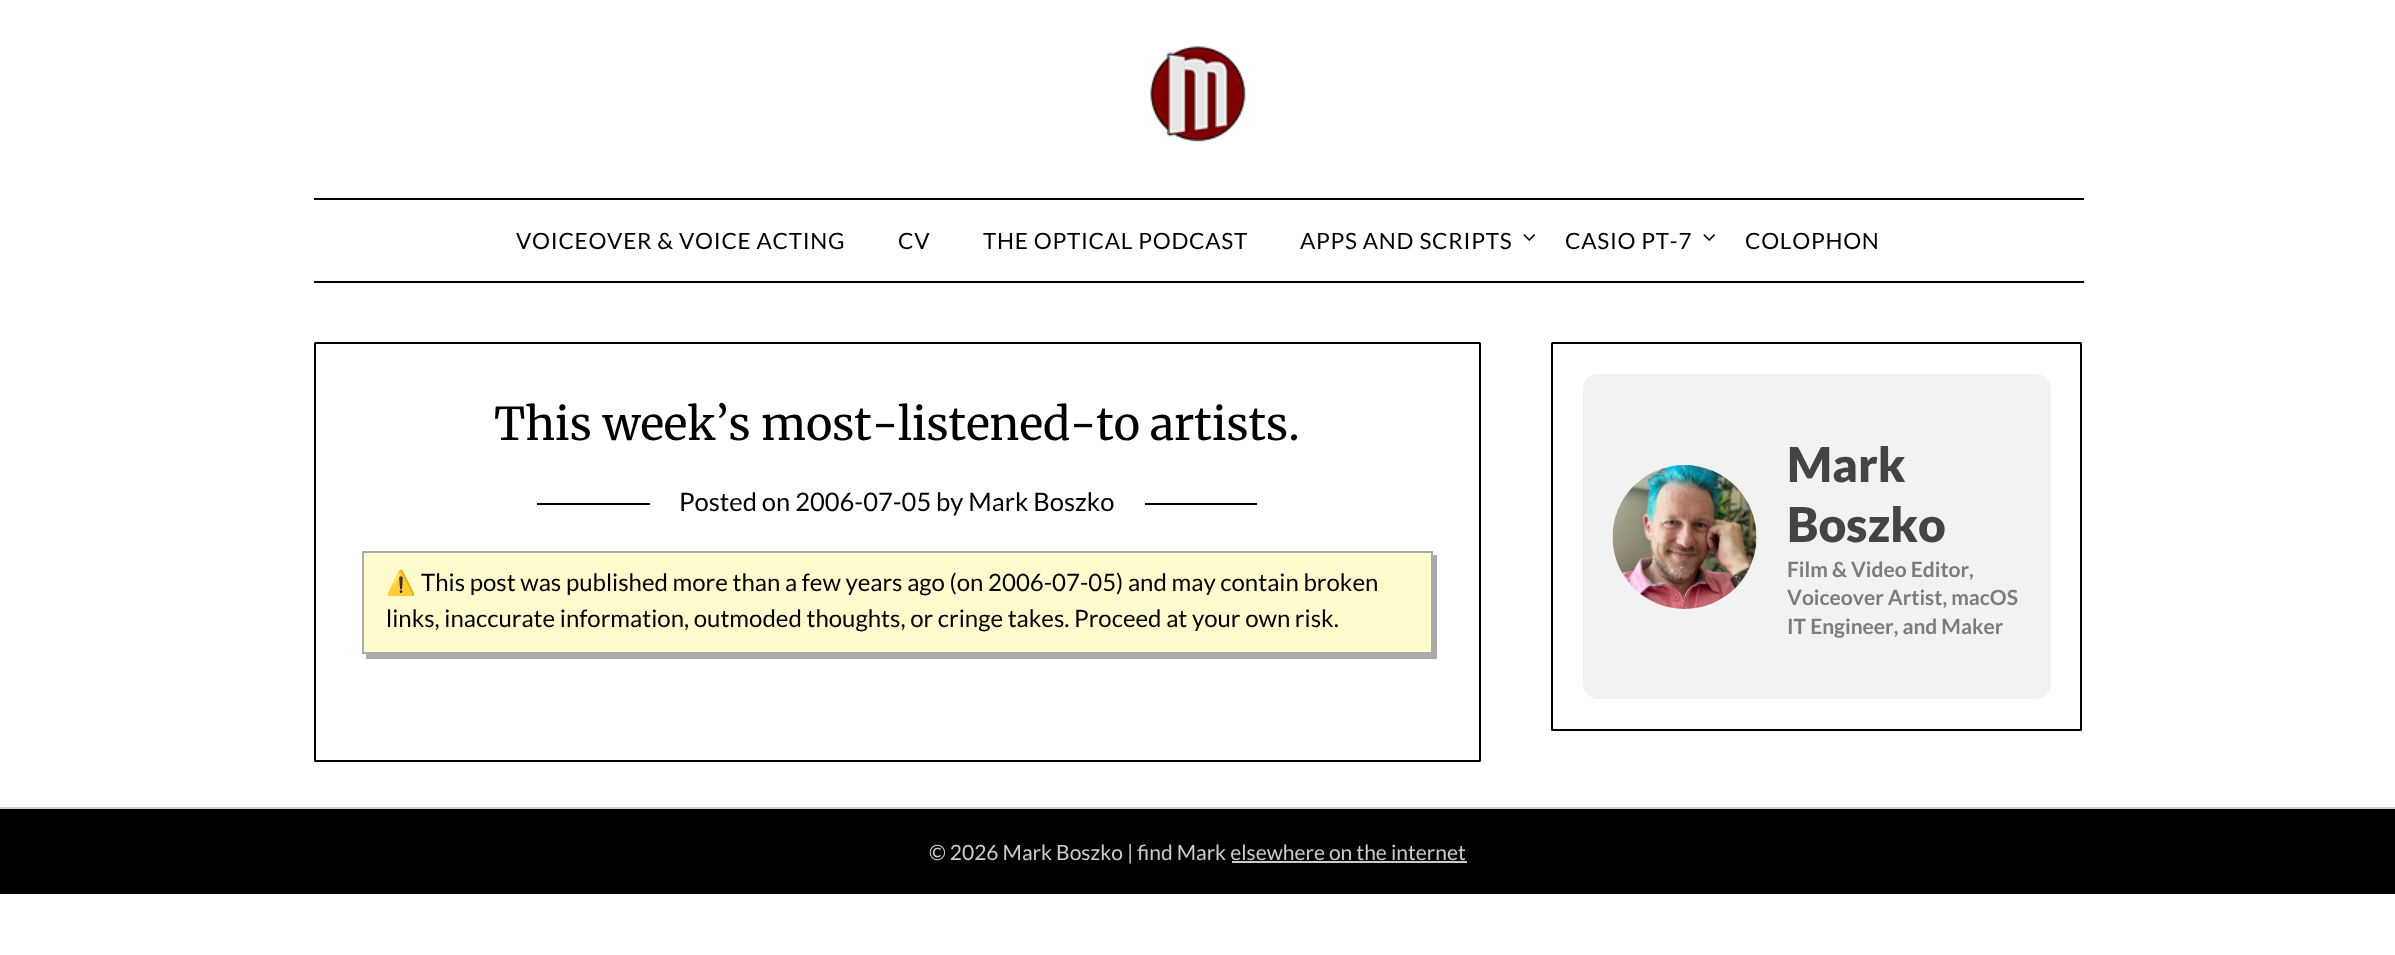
(async () => {
    const canvas = document.querySelector("canvas");
    canvas.width = 2395;
    canvas.height = 955;
    const context = canvas.getContext("2d");
    context.miterLimit = 4;
    context.fontKerning = "none";
    function write(s, x, y, font, color) {
        context.font = font;
        context.fillStyle = color;
        context.fillText(s, x, y);
    }
    function block(x, y, w, h, color) {
        context.fillStyle = color;
        context.fillRect(x, y, w, h);
    }
    function card(x, y, w, h, r, color) {
        context.fillStyle = color;
        context.beginPath();
        context.roundRect(x, y, w, h, r);
        context.fill();
    }
    async function photo(src, x, y, w, h) {
        const img = new Image();
        img.src = src;
        await img.decode();
        context.drawImage(img, x, y, w, h);
    }

    block(0, 0, 2395, 955, "rgb(255, 255, 255)");
    await photo("media/1.png", 1150, 46, 96, 96);
    block(314, 198, 1770, 2, "rgb(0, 0, 0)");
    block(314, 281, 1770, 2, "rgb(0, 0, 0)");
    context.letterSpacing = "0.75px";
    write("VOICEOVER & VOICE ACTING", 516, 249, "22.5px Lato", "rgb(0, 0, 0)");
    write("CV", 898, 249, "22.5px Lato", "rgb(0, 0, 0)");
    write("THE OPTICAL PODCAST", 983, 249, "22.5px Lato", "rgb(0, 0, 0)");
    write("APPS AND SCRIPTS", 1300, 249, "22.5px Lato", "rgb(0, 0, 0)");
    await photo("media/2.png", 1523, 234, 12, 7);
    write("CASIO PT-7", 1565, 249, "22.5px Lato", "rgb(0, 0, 0)");
    await photo("media/2.png", 1703, 234, 12, 7);
    write("COLOPHON", 1745, 249, "22.5px Lato", "rgb(0, 0, 0)");
    context.beginPath();
    context.roundRect(315, 343, 1165, 418, 0.5);
    context.strokeStyle = "rgb(0, 0, 0)";
    context.lineWidth = 2;
    context.stroke();
    context.letterSpacing = "0px";
    write("This week’s most-listened-to", 494, 440, "45px Merriweather", "rgb(0, 0, 0)");
    write("artists.", 1150, 440, "45px Merriweather", "rgb(0, 0, 0)");
    block(537, 503, 720, 2, "rgb(0, 0, 0)");
    block(650, 503, 495, 2, "rgb(255, 255, 255)");
    write("Posted on 2006-07-05 by Mark Boszko", 679, 511, "25.5px Lato", "rgb(0, 0, 0)");
    context.fillStyle = "rgb(170, 170, 170)";
    context.beginPath();
    context.moveTo(366, 654);
    context.lineTo(366, 659);
    context.lineTo(1437, 659);
    context.lineTo(1437, 555);
    context.lineTo(1432, 555);
    context.lineTo(1432, 654);
    context.closePath();
    context.fill();
    context.fillStyle = "rgb(255, 251, 204)";
    context.beginPath();
    context.rect(363, 552, 1069, 101);
    context.fill();
    context.strokeStyle = "rgb(170, 170, 170)";
    context.stroke();
    write("⚠️", 386, 591, "24px Noto Color Emoji", "rgb(0, 0, 0)");
    write("This post was published more than a few years ago (on 2006-07-05) and may contain broken", 421, 591, "24px Lato", "rgb(0, 0, 0)");
    write("links, inaccurate information, outmoded thoughts, or cringe takes. Proceed at your own risk.", 386, 627, "24px Lato", "rgb(0, 0, 0)");
    context.beginPath();
    context.roundRect(1552, 343, 529, 387, 0.5);
    context.strokeStyle = "rgb(0, 0, 0)";
    context.stroke();
    card(1583, 374, 468, 325, 15, "rgb(242, 242, 242)");
    await photo("media/3.png", 1612, 465, 145, 144);
    write("Mark", 1787, 482, "900 48px Lato", "rgb(68, 68, 68)");
    write("Boszko", 1787, 542, "900 48px Lato", "rgb(68, 68, 68)");
    write("Film & Video Editor,", 1787, 577, "bold 21px Lato", "rgb(124, 124, 124)");
    write("Voiceover Artist, macOS", 1787, 605, "bold 21px Lato", "rgb(124, 124, 124)");
    write("IT Engineer, and Maker", 1787, 634, "bold 21px Lato", "rgb(124, 124, 124)");
    block(0, 809, 2395, 85, "rgb(0, 0, 0)");
    block(0, 807, 2395, 2, "rgb(204, 204, 204)");
    write("© 2026 Mark Boszko | find Mark elsewhere on the internet", 929, 860, "21px Lato", "rgb(204, 204, 204)");
    block(1232, 861, 235, 2, "rgb(204, 204, 204)");
})();
